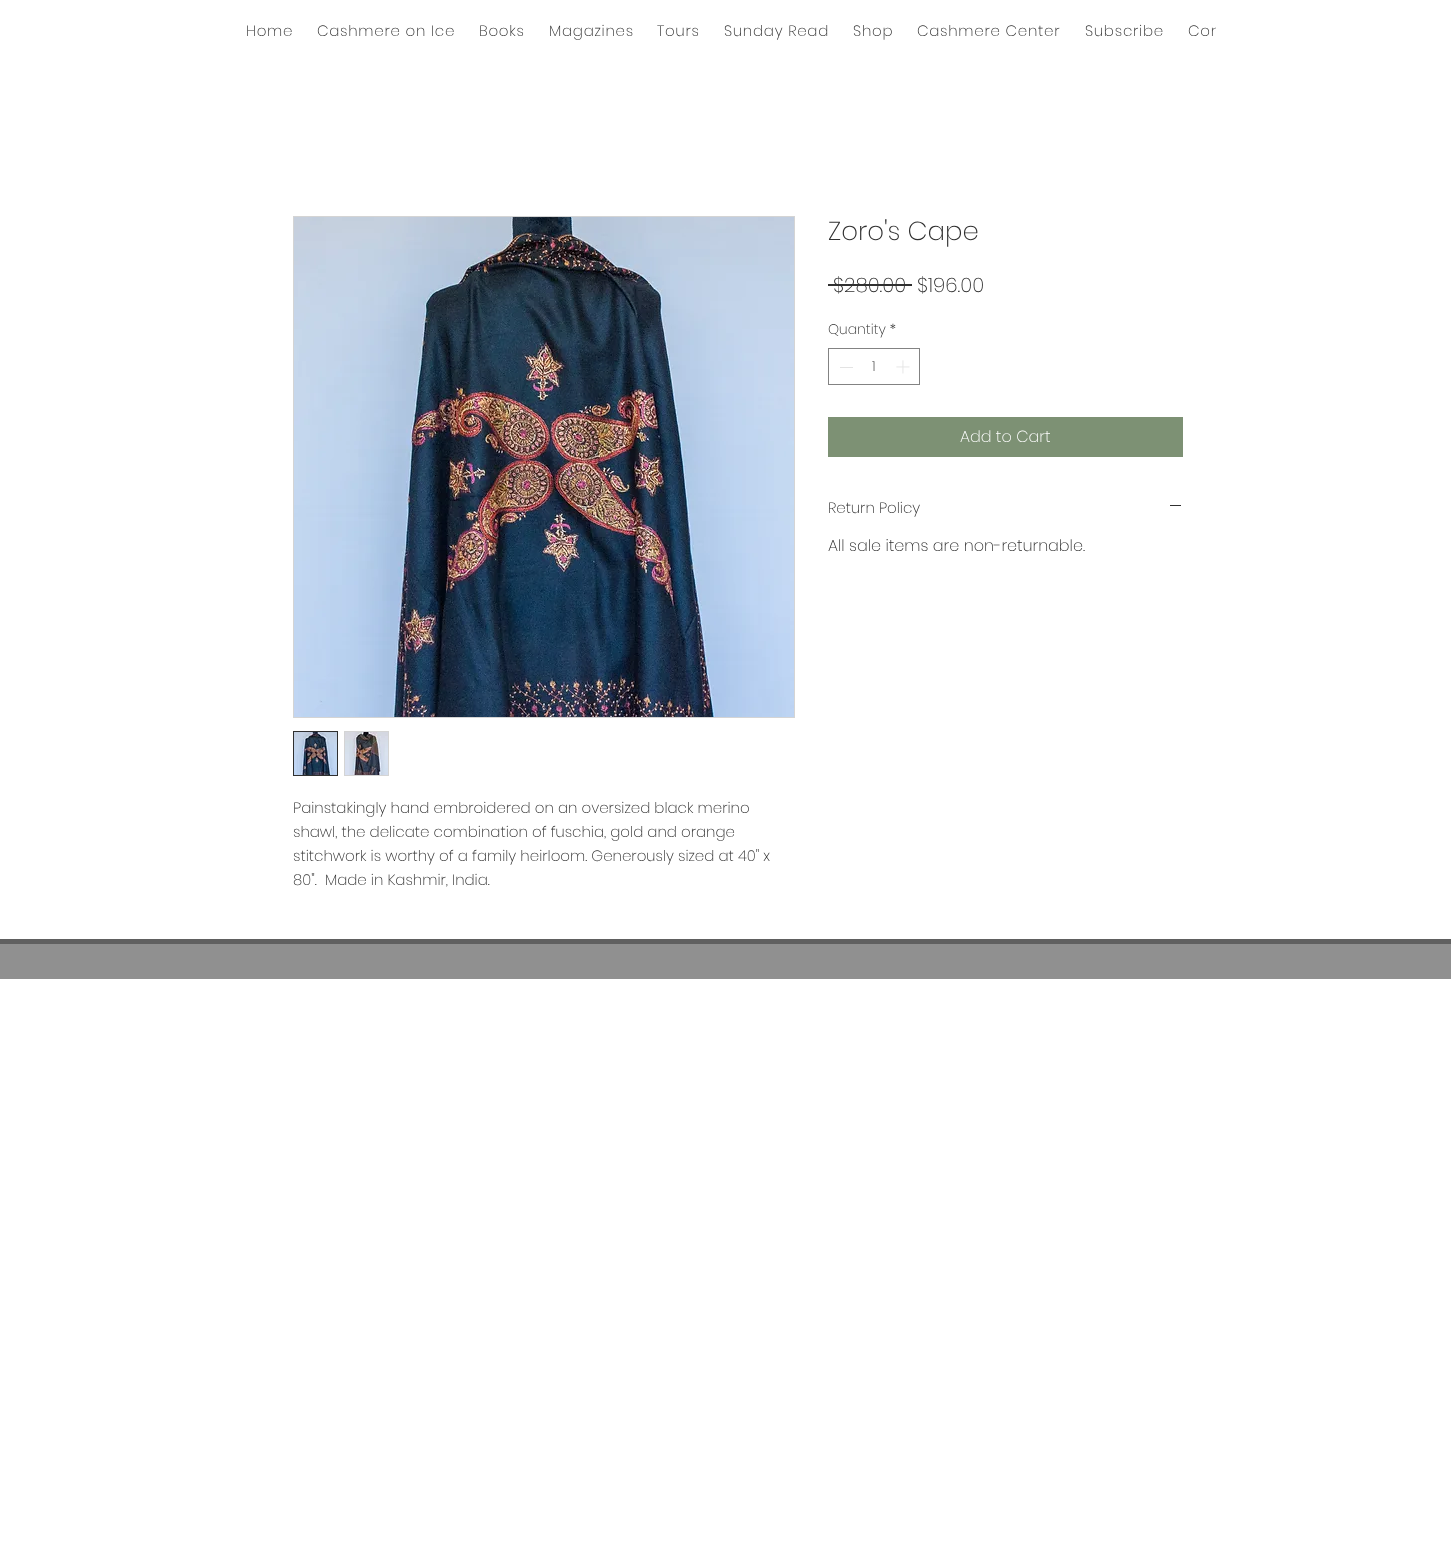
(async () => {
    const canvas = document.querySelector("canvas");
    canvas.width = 1451;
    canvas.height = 1544;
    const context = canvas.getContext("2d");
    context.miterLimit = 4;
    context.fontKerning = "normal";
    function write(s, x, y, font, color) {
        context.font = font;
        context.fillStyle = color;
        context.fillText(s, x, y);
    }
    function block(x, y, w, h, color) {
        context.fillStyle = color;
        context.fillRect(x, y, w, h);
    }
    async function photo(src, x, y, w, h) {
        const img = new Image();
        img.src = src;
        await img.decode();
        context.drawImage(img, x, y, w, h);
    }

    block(0, 0, 1451, 1544, "rgb(255, 255, 255)");
    context.letterSpacing = "0.75px";
    write("Home", 246, 36, "200 15px Poppins", "rgb(48, 48, 48)");
    write("Cashmere on Ice", 317, 36, "200 15px Poppins", "rgb(48, 48, 48)");
    write("Books", 479, 36, "200 15px Poppins", "rgb(48, 48, 48)");
    write("Magazines", 549, 36, "200 15px Poppins", "rgb(48, 48, 48)");
    write("Tours", 657, 36, "200 15px Poppins", "rgb(48, 48, 48)");
    write("Sunday Read", 724, 36, "200 15px Poppins", "rgb(48, 48, 48)");
    write("Shop", 853, 36, "200 15px Poppins", "rgb(48, 48, 48)");
    write("Cashmere Center", 917, 36, "200 15px Poppins", "rgb(48, 48, 48)");
    write("Subscribe", 1085, 36, "200 15px Poppins", "rgb(48, 48, 48)");
    context.save();
    context.beginPath();
    context.rect(236, 0, 980, 61);
    context.clip();
    write("Con", 1188, 36, "200 15px Poppins", "rgb(48, 48, 48)");
    context.restore();
    context.letterSpacing = "0px";
    write("Zoro's Cape", 828, 240, "200 26px Poppins", "rgb(48, 48, 48)");
    write("$280.00", 833, 292, "200 20px Poppins", "rgb(48, 48, 48)");
    block(828, 284, 84, 2, "rgb(48, 48, 48)");
    write("$196.00", 917, 292, "200 20px Poppins", "rgb(48, 48, 48)");
    write("Quantity *", 828, 334, "200 14px Poppins", "rgb(48, 48, 48)");
    context.strokeStyle = "rgb(131, 131, 131)";
    context.strokeRect(828.5, 348.5, 91, 36);
    block(840, 367, 13, 1, "rgb(227, 227, 227)");
    write("1", 872, 371, "200 14px Poppins", "rgb(48, 48, 48)");
    await photo("media/1.png", 896, 360, 14, 14);
    block(828, 417, 355, 40, "rgb(125, 145, 116)");
    write("Add to Cart", 960, 442, "200 16px Poppins", "rgb(255, 255, 255)");
    write("Return Policy", 828, 513, "200 15px Poppins", "rgb(48, 48, 48)");
    block(1170, 505, 11, 1, "rgb(48, 48, 48)");
    write("All sale items are non-returnable.", 828, 551, "200 16px Poppins", "rgb(48, 48, 48)");
    context.strokeStyle = "rgb(212, 212, 212)";
    context.strokeRect(293.5, 216.5, 501, 501);
    await photo("media/2.png", 294, 217, 500, 500);
    context.strokeStyle = "rgb(48, 48, 48)";
    context.strokeRect(293.5, 731.5, 44, 44);
    await photo("media/3.png", 294, 732, 43, 43);
    block(344, 731, 45, 45, "rgb(212, 212, 212)");
    await photo("media/4.png", 345, 732, 43, 43);
    write("Painstakingly hand embroidered on an oversized black merino", 293, 813, "200 15px Poppins", "rgb(48, 48, 48)");
    write("shawl, the delicate combination of fuschia, gold and orange", 293, 837, "200 15px Poppins", "rgb(48, 48, 48)");
    write("stitchwork is worthy of a family heirloom. Generously sized at 40\" x", 293, 861, "200 15px Poppins", "rgb(48, 48, 48)");
    write("80\".  Made in Kashmir, India.", 293, 885, "200 15px Poppins", "rgb(48, 48, 48)");
    block(0, 944, 1451, 35, "rgb(144, 144, 144)");
    block(0, 939, 1451, 5, "rgb(96, 96, 96)");
})();
